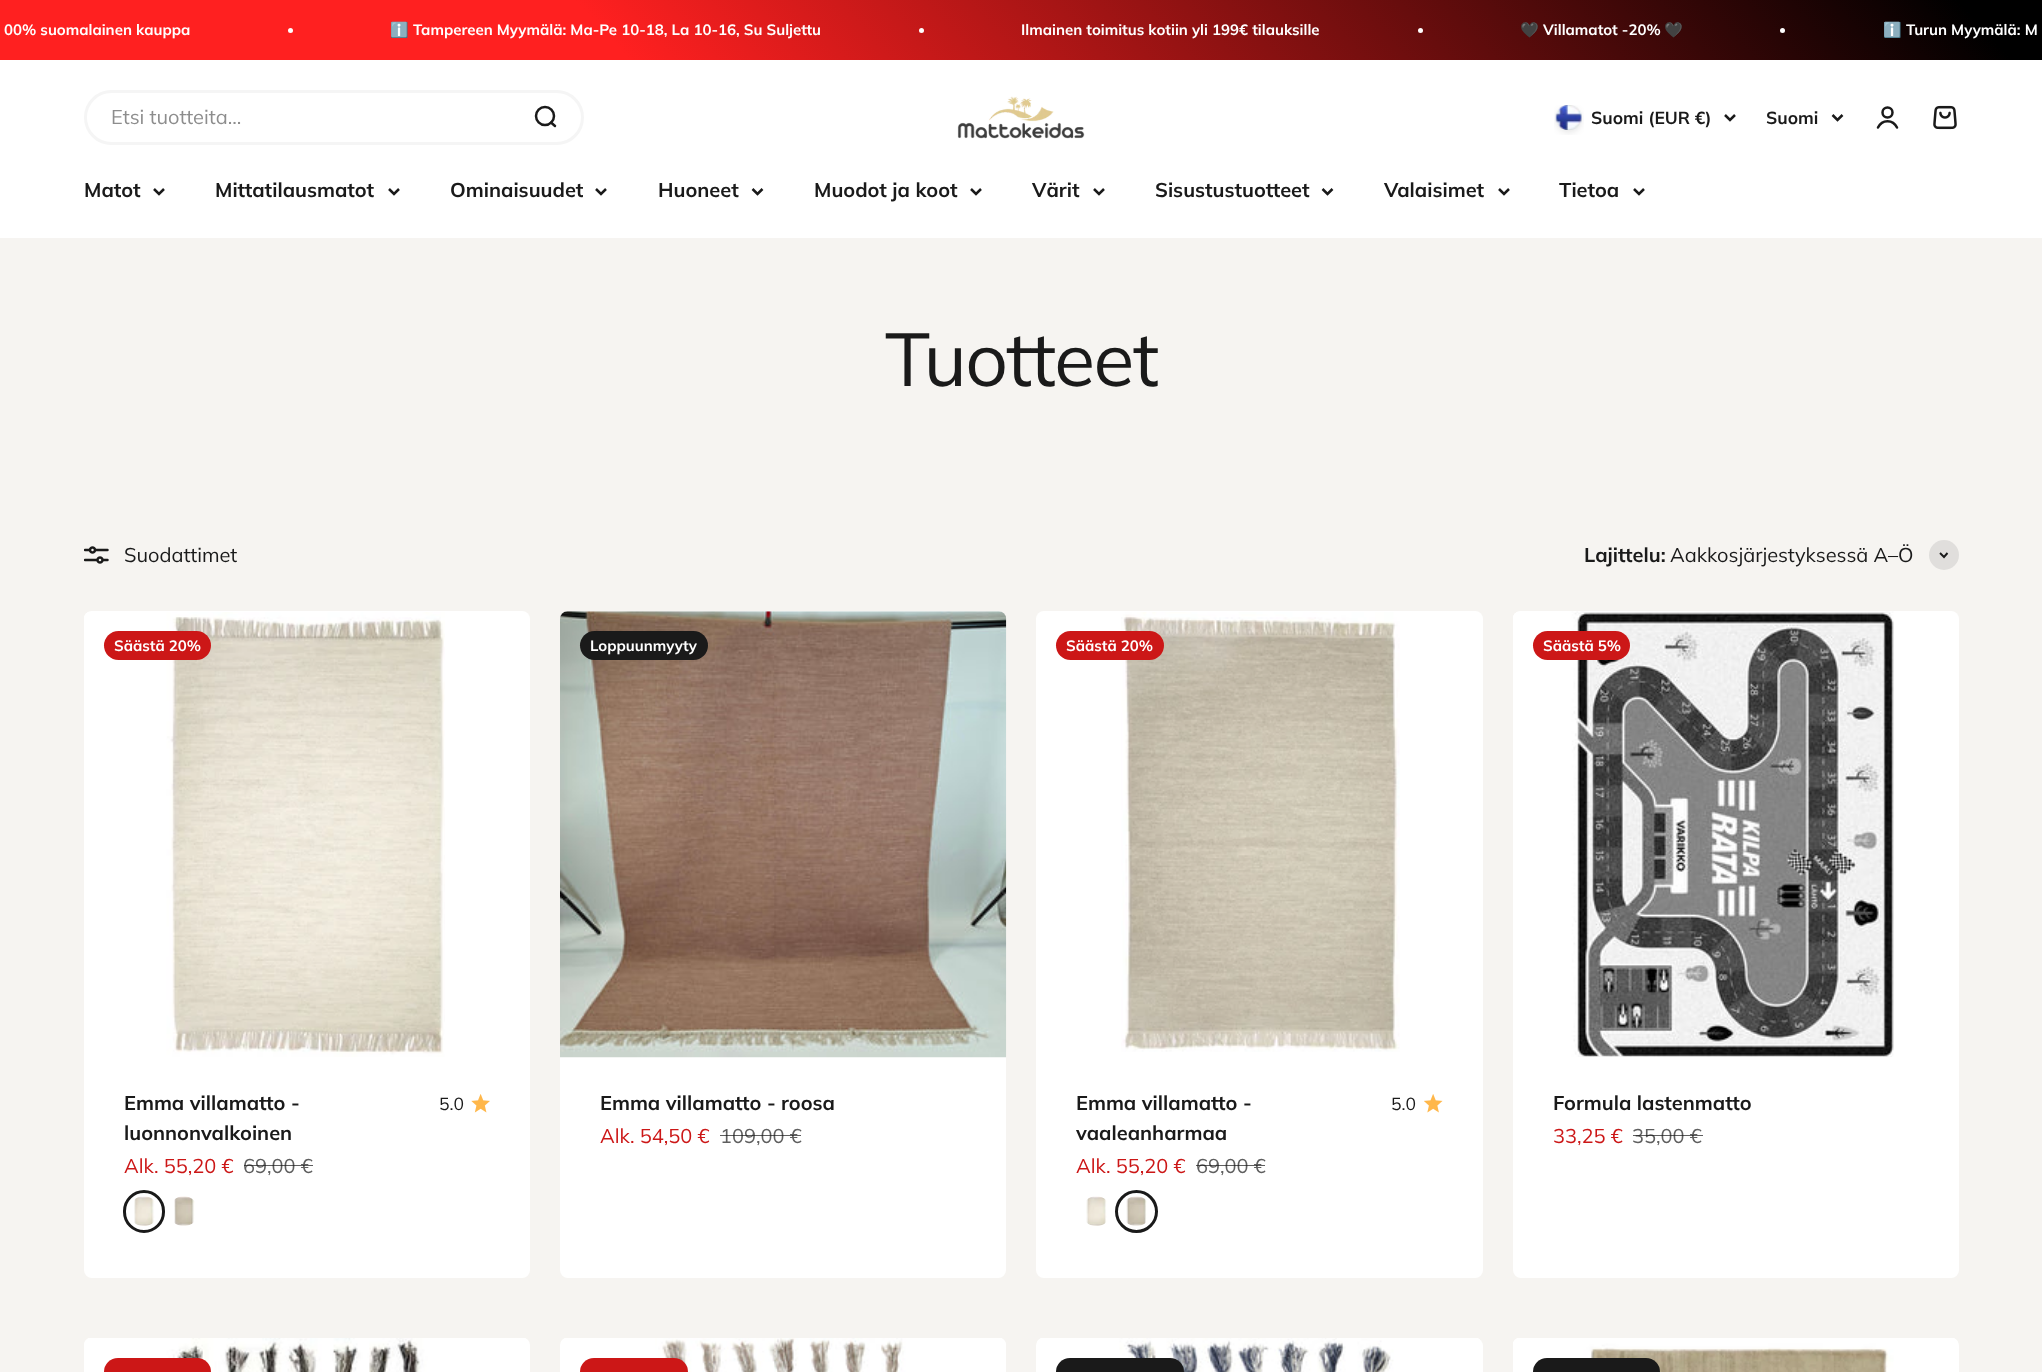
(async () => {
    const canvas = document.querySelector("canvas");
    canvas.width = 2042;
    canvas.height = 1372;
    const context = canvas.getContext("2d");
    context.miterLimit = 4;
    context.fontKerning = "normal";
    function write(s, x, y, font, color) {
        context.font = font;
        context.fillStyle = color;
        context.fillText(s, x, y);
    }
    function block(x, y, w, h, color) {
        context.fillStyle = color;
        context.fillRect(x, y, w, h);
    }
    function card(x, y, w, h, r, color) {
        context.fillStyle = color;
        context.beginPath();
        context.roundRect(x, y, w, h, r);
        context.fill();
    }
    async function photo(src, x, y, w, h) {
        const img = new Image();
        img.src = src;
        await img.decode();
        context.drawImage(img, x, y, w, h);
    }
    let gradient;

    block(0, 0, 2042, 1372, "rgb(246, 244, 241)");
    gradient = context.createLinearGradient(1600, -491, 442, 551);
    gradient.addColorStop(0.04, "rgb(0, 0, 0)");
    gradient.addColorStop(0.7, "rgb(255, 32, 32)");
    context.fillStyle = gradient;
    context.fillRect(0, 0, 2042, 60);
    write("00% suomalainen kauppa", 4, 35, "bold 15px Muli", "rgb(255, 255, 255)");
    context.beginPath();
    context.arc(290.5, 30.5, 2.5, 0, Math.PI * 2);
    context.fill();
    write("ℹ️", 390, 35, "bold 15px Noto Color Emoji", "rgb(255, 255, 255)");
    write("Tampereen Myymälä: Ma-Pe 10-18, La 10-16, Su Suljettu", 413, 35, "bold 15px Muli", "rgb(255, 255, 255)");
    context.beginPath();
    context.arc(921.5, 30.5, 2.5, 0, Math.PI * 2);
    context.fill();
    write("Ilmainen toimitus kotiin yli 199€ tilauksille", 1021, 35, "bold 15px Muli", "rgb(255, 255, 255)");
    context.beginPath();
    context.arc(1420.5, 30.5, 2.5, 0, Math.PI * 2);
    context.fill();
    write("🖤", 1520, 35, "bold 15px Noto Color Emoji", "rgb(255, 255, 255)");
    write("Villamatot -20%", 1543, 35, "bold 15px Muli", "rgb(255, 255, 255)");
    write("🖤", 1664, 35, "bold 15px Noto Color Emoji", "rgb(255, 255, 255)");
    context.beginPath();
    context.arc(1782.5, 30.5, 2.5, 0, Math.PI * 2);
    context.fill();
    write("ℹ️", 1883, 35, "bold 15px Noto Color Emoji", "rgb(255, 255, 255)");
    write("Turun Myymälä: M", 1906, 35, "bold 15px Muli", "rgb(255, 255, 255)");
    block(0, 60, 2042, 178, "rgb(255, 255, 255)");
    context.beginPath();
    context.roundRect(85.5, 91.5, 497, 52, 26);
    context.strokeStyle = "rgb(245, 245, 245)";
    context.lineWidth = 3;
    context.stroke();
    write("Etsi tuotteita...", 111, 124, "20px Muli", "rgb(141, 141, 141)");
    context.beginPath();
    context.arc(545, 116, 9, 0, Math.PI * 2);
    context.strokeStyle = "rgb(26, 26, 26)";
    context.lineWidth = 2.5;
    context.stroke();
    context.beginPath();
    context.moveTo(551, 122.5);
    context.lineTo(555, 126);
    context.lineCap = "round";
    context.lineJoin = "round";
    context.stroke();
    await photo("media/1.png", 957, 96, 128, 43);
    await photo("media/2.png", 1554, 105, 30, 30);
    write("Suomi (EUR €)", 1591, 124, "bold 17.5px Muli", "rgb(26, 26, 26)");
    context.beginPath();
    context.moveTo(1725, 115);
    context.lineTo(1730, 120);
    context.lineTo(1735, 115);
    context.lineCap = "butt";
    context.lineJoin = "miter";
    context.stroke();
    write("Suomi", 1766, 124, "bold 17.5px Muli", "rgb(26, 26, 26)");
    context.beginPath();
    context.moveTo(1832.5, 115);
    context.lineTo(1837.5, 120);
    context.lineTo(1842.5, 115);
    context.stroke();
    context.beginPath();
    context.arc(1887.5, 112.5, 5, 0, Math.PI * 2);
    context.stroke();
    context.beginPath();
    context.moveTo(1878, 127.5);
    context.bezierCurveTo(1882, 119, 1893, 119, 1897, 127.5);
    context.lineCap = "round";
    context.stroke();
    await photo("media/3.png", 1933, 105, 24, 25);
    write("Matot", 84, 197, "bold 20px Muli", "rgb(26, 26, 26)");
    context.beginPath();
    context.moveTo(154, 189);
    context.lineTo(159, 194);
    context.lineTo(164, 189);
    context.lineCap = "butt";
    context.stroke();
    write("Mittatilausmatot", 215, 197, "bold 20px Muli", "rgb(26, 26, 26)");
    context.beginPath();
    context.moveTo(389, 189);
    context.lineTo(394, 194);
    context.lineTo(399, 189);
    context.stroke();
    write("Ominaisuudet", 450, 197, "bold 20px Muli", "rgb(26, 26, 26)");
    context.beginPath();
    context.moveTo(596, 189);
    context.lineTo(601, 194);
    context.lineTo(606, 189);
    context.stroke();
    write("Huoneet", 658, 197, "bold 20px Muli", "rgb(26, 26, 26)");
    context.beginPath();
    context.moveTo(752.5, 189);
    context.lineTo(757.5, 194);
    context.lineTo(762.5, 189);
    context.stroke();
    write("Muodot ja koot", 814, 197, "bold 20px Muli", "rgb(26, 26, 26)");
    context.beginPath();
    context.moveTo(971, 189);
    context.lineTo(976, 194);
    context.lineTo(981, 189);
    context.stroke();
    write("Värit", 1032, 197, "bold 20px Muli", "rgb(26, 26, 26)");
    context.beginPath();
    context.moveTo(1094, 189);
    context.lineTo(1099, 194);
    context.lineTo(1104, 189);
    context.stroke();
    write("Sisustustuotteet", 1155, 197, "bold 20px Muli", "rgb(26, 26, 26)");
    context.beginPath();
    context.moveTo(1322.5, 189);
    context.lineTo(1327.5, 194);
    context.lineTo(1332.5, 189);
    context.stroke();
    write("Valaisimet", 1384, 197, "bold 20px Muli", "rgb(26, 26, 26)");
    context.beginPath();
    context.moveTo(1499, 189);
    context.lineTo(1504, 194);
    context.lineTo(1509, 189);
    context.stroke();
    write("Tietoa", 1559, 197, "bold 20px Muli", "rgb(26, 26, 26)");
    context.beginPath();
    context.moveTo(1634, 189);
    context.lineTo(1639, 194);
    context.lineTo(1644, 189);
    context.stroke();
    context.letterSpacing = "-1.5px";
    write("Tuotteet", 885, 386, "75px Muli", "rgb(26, 26, 26)");
    await photo("media/4.png", 84, 546, 25, 18);
    context.letterSpacing = "0px";
    write("Suodattimet", 124, 562, "20px Muli", "rgb(26, 26, 26)");
    write("Lajittelu:", 1584, 562, "bold 20px Muli", "rgb(26, 26, 26)");
    write("Aakkosjärjestyksessä A–Ö", 1670, 562, "20px Muli", "rgb(26, 26, 26)");
    context.fillStyle = "rgb(224, 222, 220)";
    context.beginPath();
    context.arc(1944, 555, 15, 0, Math.PI * 2);
    context.fill();
    context.beginPath();
    context.moveTo(1940, 553);
    context.lineTo(1944, 557);
    context.lineTo(1947.5, 553);
    context.lineWidth = 1.9;
    context.stroke();
    card(84, 611, 446, 667, 8, "rgb(255, 255, 255)");
    await photo("media/5.png", 84, 612, 361, 445);
    card(104, 631, 107, 29, 14.5, "rgb(204, 23, 23)");
    write("Säästä 20%", 114, 651, "bold 15px Muli", "rgb(255, 255, 255)");
    write("Emma villamatto -", 124, 1110, "bold 20px Muli", "rgb(26, 26, 26)");
    write("luonnonvalkoinen", 124, 1140, "bold 20px Muli", "rgb(26, 26, 26)");
    write("5.0", 439, 1110, "17.5px Muli", "rgb(26, 26, 26)");
    await photo("media/6.png", 471, 1094, 19, 19);
    write("Alk. 55,20 €", 124, 1173, "20px Muli", "rgb(204, 23, 23)");
    write("69,00 €", 243, 1173, "20px Muli", "rgb(95, 95, 95)");
    block(244, 1165, 69, 1, "rgba(26, 26, 26, 0.7)");
    await photo("media/7.png", 134, 1196, 21, 30);
    context.beginPath();
    context.roundRect(124.5, 1191.5, 39, 40, 19.5);
    context.lineWidth = 3;
    context.stroke();
    await photo("media/8.png", 174, 1196, 21, 30);
    card(560, 611, 446, 667, 8, "rgb(255, 255, 255)");
    await photo("media/9.png", 560, 611, 447, 447);
    card(580, 631, 128, 29, 14.5, "rgb(26, 26, 26)");
    write("Loppuunmyyty", 590, 651, "bold 15px Muli", "rgb(255, 255, 255)");
    write("Emma villamatto - roosa", 600, 1110, "bold 20px Muli", "rgb(26, 26, 26)");
    write("Alk. 54,50 €", 600, 1143, "20px Muli", "rgb(204, 23, 23)");
    write("109,00 €", 720, 1143, "20px Muli", "rgb(95, 95, 95)");
    block(720, 1135, 81, 1, "rgba(26, 26, 26, 0.7)");
    card(1036, 611, 447, 667, 8, "rgb(255, 255, 255)");
    await photo("media/10.png", 1121, 612, 279, 440);
    card(1056, 631, 108, 29, 14.5, "rgb(204, 23, 23)");
    write("Säästä 20%", 1066, 651, "bold 15px Muli", "rgb(255, 255, 255)");
    write("Emma villamatto -", 1076, 1110, "bold 20px Muli", "rgb(26, 26, 26)");
    write("vaaleanharmaa", 1076, 1140, "bold 20px Muli", "rgb(26, 26, 26)");
    write("5.0", 1391, 1110, "17.5px Muli", "rgb(26, 26, 26)");
    await photo("media/11.png", 1424, 1094, 19, 19);
    write("Alk. 55,20 €", 1076, 1173, "20px Muli", "rgb(204, 23, 23)");
    write("69,00 €", 1196, 1173, "20px Muli", "rgb(95, 95, 95)");
    block(1196, 1165, 69, 1, "rgba(26, 26, 26, 0.7)");
    await photo("media/12.png", 1086, 1196, 21, 30);
    await photo("media/13.png", 1126, 1196, 21, 30);
    context.beginPath();
    context.arc(1136.5, 1211.5, 20, 0, Math.PI * 2);
    context.stroke();
    card(1513, 611, 446, 667, 8, "rgb(255, 255, 255)");
    await photo("media/14.png", 1513, 611, 381, 446);
    card(1533, 631, 97, 29, 14.5, "rgb(204, 23, 23)");
    write("Säästä 5%", 1543, 651, "bold 15px Muli", "rgb(255, 255, 255)");
    write("Formula lastenmatto", 1553, 1110, "bold 20px Muli", "rgb(26, 26, 26)");
    write("33,25 €", 1553, 1143, "20px Muli", "rgb(204, 23, 23)");
    write("35,00 €", 1632, 1143, "20px Muli", "rgb(95, 95, 95)");
    block(1633, 1135, 70, 1, "rgba(26, 26, 26, 0.7)");
    await photo("media/15.png", 84, 1338, 446, 34);
    card(104, 1358, 107, 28, 14, "rgb(204, 23, 23)");
    await photo("media/16.png", 560, 1338, 446, 34);
    card(580, 1358, 108, 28, 14, "rgb(204, 23, 23)");
    card(1036, 1338, 447, 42, 8, "rgb(255, 255, 255)");
    await photo("media/17.png", 1037, 1338, 443, 34);
    card(1056, 1358, 128, 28, 14, "rgb(26, 26, 26)");
    card(1513, 1338, 446, 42, 8, "rgb(255, 255, 255)");
    await photo("media/18.png", 1513, 1338, 445, 34);
    card(1533, 1358, 127, 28, 14, "rgb(26, 26, 26)");
})();
